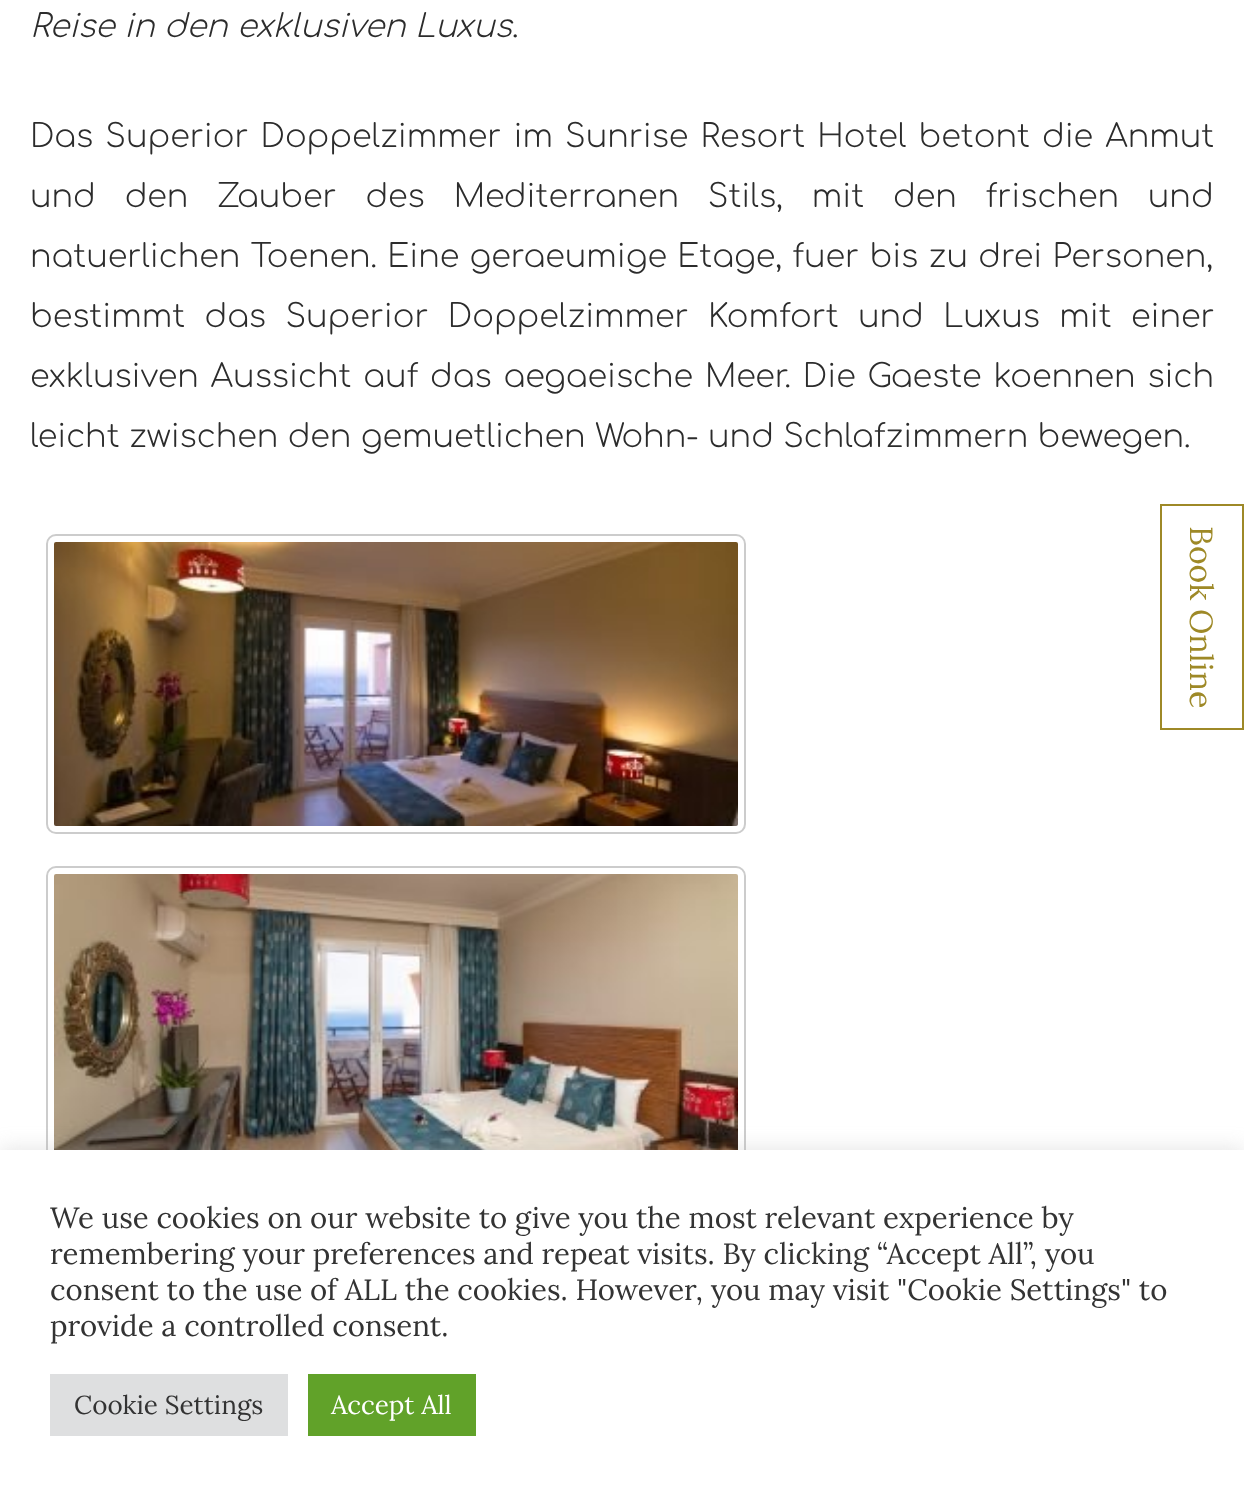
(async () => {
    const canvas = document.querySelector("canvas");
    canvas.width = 1244;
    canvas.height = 1496;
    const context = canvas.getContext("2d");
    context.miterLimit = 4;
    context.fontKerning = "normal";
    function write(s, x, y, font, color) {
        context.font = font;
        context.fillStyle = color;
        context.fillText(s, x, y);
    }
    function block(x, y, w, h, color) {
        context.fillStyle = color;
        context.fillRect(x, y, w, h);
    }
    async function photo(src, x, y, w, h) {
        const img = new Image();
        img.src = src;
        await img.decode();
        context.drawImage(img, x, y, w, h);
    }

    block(0, 0, 1244, 1496, "rgb(255, 255, 255)");
    write("Reise in den exklusiven Luxus", 30, 37, "italic 300 32px Comfortaa", "rgb(44, 44, 44)");
    write(".", 512, 37, "300 32px Comfortaa", "rgb(44, 44, 44)");
    context.wordSpacing = "2.75px";
    write("Das Superior Doppelzimmer im Sunrise Resort Hotel betont die Anmut", 30, 147, "300 32px Comfortaa", "rgb(44, 44, 44)");
    context.wordSpacing = "19.5px";
    write("und den Zauber des Mediterranen Stils, mit den frischen und", 30, 207, "300 32px Comfortaa", "rgb(44, 44, 44)");
    context.wordSpacing = "1px";
    write("natuerlichen Toenen. Eine geraeumige Etage, fuer bis zu drei Personen,", 30, 267, "300 32px Comfortaa", "rgb(44, 44, 44)");
    context.wordSpacing = "10px";
    write("bestimmt das Superior Doppelzimmer Komfort und Luxus mit einer", 30, 327, "300 32px Comfortaa", "rgb(44, 44, 44)");
    context.wordSpacing = "2.5px";
    write("exklusiven Aussicht auf das aegaeische Meer. Die Gaeste koennen sich", 30, 387, "300 32px Comfortaa", "rgb(44, 44, 44)");
    context.wordSpacing = "0px";
    write("leicht zwischen den gemuetlichen Wohn- und Schlafzimmern bewegen.", 30, 447, "300 32px Comfortaa", "rgb(44, 44, 44)");
    context.beginPath();
    context.roundRect(47, 535, 698, 298, 9);
    context.strokeStyle = "rgb(204, 204, 204)";
    context.lineWidth = 2;
    context.stroke();
    await photo("media/1.png", 54, 542, 684, 284);
    context.beginPath();
    context.roundRect(47, 867, 698, 298, 9);
    context.stroke();
    await photo("media/2.png", 54, 874, 684, 276);
    context.strokeStyle = "rgb(158, 137, 39)";
    context.strokeRect(1161, 505, 82, 224);
    context.font = "32px Lora";
    context.fillStyle = "rgb(158, 137, 39)";
    context.save();
    context.translate(1190, 526);
    context.rotate(90 * Math.PI / 180);
    context.fillText("Book Online", 0, 0);
    context.restore();
    context.fillStyle = "rgba(172, 171, 171, 0.3)";
    context.filter = "blur(10px)";
    context.beginPath();
    context.rect(0, 1148, 1244, 346);
    context.fill();
    context.filter = "none";
    block(0, 1150, 1244, 346, "rgb(255, 255, 255)");
    write("We use cookies on our website to give you the most relevant experience by", 50, 1228, "29.35px Lora", "rgb(51, 51, 51)");
    write("remembering your preferences and repeat visits. By clicking “Accept All”, you", 50, 1264, "29.35px Lora", "rgb(51, 51, 51)");
    write("consent to the use of ALL the cookies. However, you may visit \"Cookie Settings\" to", 50, 1300, "29.35px Lora", "rgb(51, 51, 51)");
    write("provide a controlled consent.", 50, 1336, "29.35px Lora", "rgb(51, 51, 51)");
    block(50, 1374, 238, 62, "rgb(222, 223, 224)");
    write("Cookie Settings", 74, 1414, "26px Lora", "rgb(51, 51, 51)");
    block(308, 1374, 168, 62, "rgb(97, 162, 41)");
    write("Accept All", 331, 1414, "26px Lora", "rgb(255, 255, 255)");
})();
